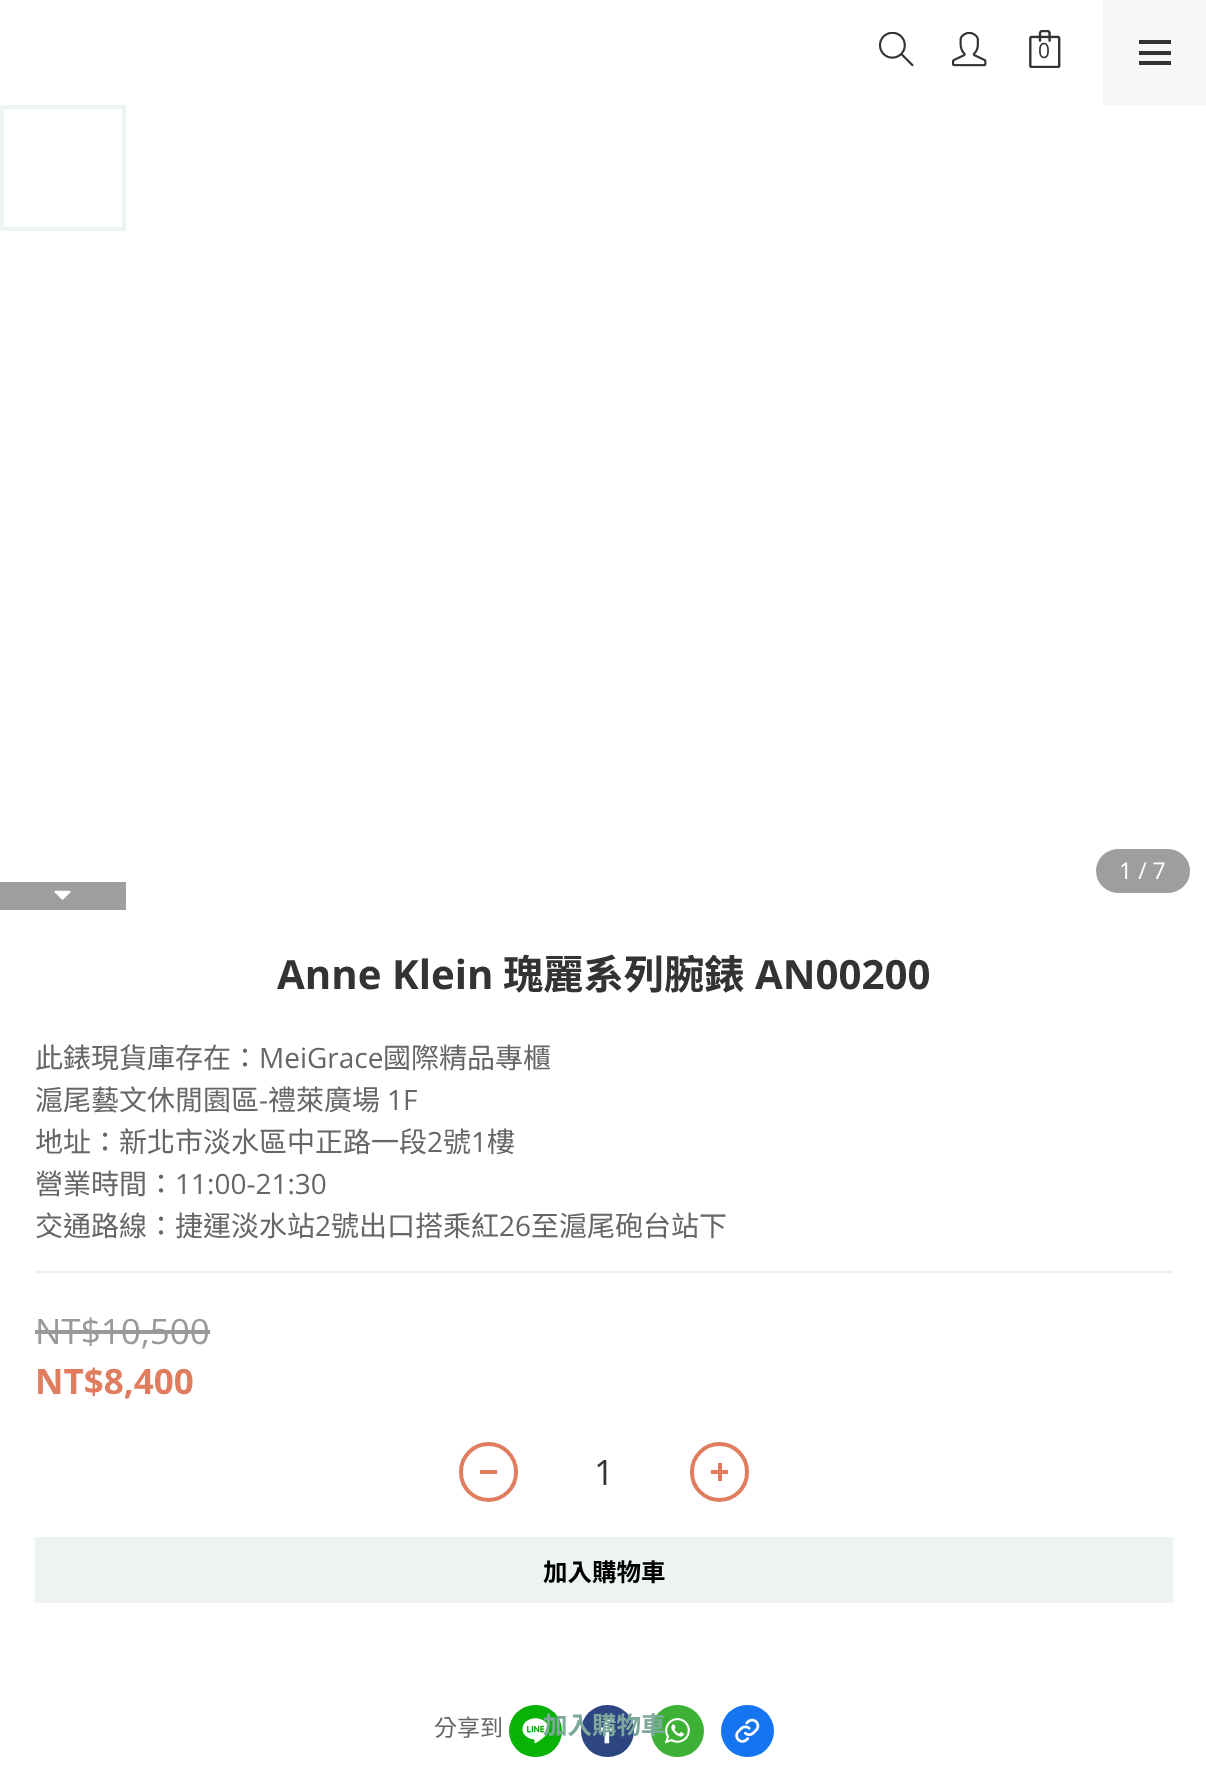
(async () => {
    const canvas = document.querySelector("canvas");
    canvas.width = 1206;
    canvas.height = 1769;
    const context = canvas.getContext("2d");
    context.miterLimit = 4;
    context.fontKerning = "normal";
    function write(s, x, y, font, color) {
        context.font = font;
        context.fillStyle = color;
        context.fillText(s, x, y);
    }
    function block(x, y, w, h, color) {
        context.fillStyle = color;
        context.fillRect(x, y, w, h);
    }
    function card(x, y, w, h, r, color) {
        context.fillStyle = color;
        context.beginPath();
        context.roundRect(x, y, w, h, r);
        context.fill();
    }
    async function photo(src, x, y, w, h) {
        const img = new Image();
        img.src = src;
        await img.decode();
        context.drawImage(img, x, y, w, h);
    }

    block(0, 0, 1206, 1769, "rgb(255, 255, 255)");
    await photo("media/1.png", 879, 32, 35, 35);
    await photo("media/2.png", 952, 32, 35, 35);
    await photo("media/3.png", 1029, 30, 32, 38);
    write("0", 1038, 58, "21px Open Sans", "rgb(51, 51, 51)");
    block(1103, 0, 103, 105, "rgb(247, 247, 247)");
    block(1139, 51, 32, 4, "rgb(51, 51, 51)");
    block(1139, 40, 32, 4, "rgb(51, 51, 51)");
    block(1139, 61, 32, 4, "rgb(51, 51, 51)");
    context.strokeStyle = "rgb(237, 243, 243)";
    context.lineWidth = 4;
    context.strokeRect(2, 107, 122, 122);
    block(0, 882, 126, 28, "rgb(158, 158, 158)");
    await photo("media/4.png", 54, 890, 17, 10);
    card(1096, 849, 94, 44, 22, "rgb(158, 158, 158)");
    write("1 / 7", 1119, 879, "23px Open Sans", "rgb(255, 255, 255)");
    write("Anne Klein", 277, 989, "bold 40.25px Open Sans", "rgb(51, 51, 51)");
    write("瑰麗系列腕錶", 503, 989, "bold 40.25px Noto Sans TC", "rgb(51, 51, 51)");
    write("AN00200", 755, 989, "bold 40.25px Open Sans", "rgb(51, 51, 51)");
    write("此錶現貨庫存在：", 35, 1068, "28px Noto Sans TC", "rgb(102, 102, 102)");
    write("MeiGrace", 259, 1068, "28px Open Sans", "rgb(102, 102, 102)");
    write("國際精品專櫃", 383, 1068, "28px Noto Sans TC", "rgb(102, 102, 102)");
    write("滬尾藝文休閒園區", 35, 1110, "28px Noto Sans TC", "rgb(102, 102, 102)");
    write("-", 259, 1110, "28px Open Sans", "rgb(102, 102, 102)");
    write("禮萊廣場", 268, 1110, "28px Noto Sans TC", "rgb(102, 102, 102)");
    write("1F", 387, 1110, "28px Open Sans", "rgb(102, 102, 102)");
    write("地址：新北市淡水區中正路一段", 35, 1152, "28px Noto Sans TC", "rgb(102, 102, 102)");
    write("2", 427, 1152, "28px Open Sans", "rgb(102, 102, 102)");
    write("號", 443, 1152, "28px Noto Sans TC", "rgb(102, 102, 102)");
    write("1", 471, 1152, "28px Open Sans", "rgb(102, 102, 102)");
    write("樓", 487, 1152, "28px Noto Sans TC", "rgb(102, 102, 102)");
    write("營業時間：", 35, 1194, "28px Noto Sans TC", "rgb(102, 102, 102)");
    write("11:00-21:30", 175, 1194, "28px Open Sans", "rgb(102, 102, 102)");
    write("交通路線：捷運淡水站", 35, 1236, "28px Noto Sans TC", "rgb(102, 102, 102)");
    write("2", 315, 1236, "28px Open Sans", "rgb(102, 102, 102)");
    write("號出口搭乘紅", 331, 1236, "28px Noto Sans TC", "rgb(102, 102, 102)");
    write("26", 499, 1236, "28px Open Sans", "rgb(102, 102, 102)");
    write("至滬尾砲台站下", 531, 1236, "28px Noto Sans TC", "rgb(102, 102, 102)");
    block(35, 1271, 1138, 2, "rgb(238, 238, 238)");
    write("NT$10,500", 35, 1344, "35px Open Sans", "rgb(153, 153, 153)");
    block(35, 1330, 175, 4, "rgb(153, 153, 153)");
    write("NT$8,400", 35, 1394, "bold 35px Open Sans", "rgb(224, 125, 94)");
    context.beginPath();
    context.roundRect(461, 1444, 55, 56, 27.5);
    context.strokeStyle = "rgb(224, 125, 94)";
    context.stroke();
    block(480, 1470, 17, 4, "rgb(224, 125, 94)");
    write("1", 594, 1485, "35px Open Sans", "rgb(51, 51, 51)");
    context.beginPath();
    context.roundRect(692, 1444, 55, 56, 27.5);
    context.stroke();
    block(711, 1470, 17, 4, "rgb(224, 125, 94)");
    block(718, 1463, 4, 18, "rgb(224, 125, 94)");
    block(35, 1537, 1138, 66, "rgb(237, 243, 243)");
    write("加入購物車", 543, 1581, "bold 24.5px Noto Sans TC", "rgb(0, 0, 0)");
    write("分享到", 434, 1736, "23px Noto Sans TC", "rgb(102, 102, 102)");
    card(509, 1705, 53, 52, 26, "rgb(9, 179, 5)");
    await photo("media/5.png", 522, 1718, 27, 26);
    card(581, 1705, 53, 52, 26, "rgb(45, 70, 130)");
    await photo("media/6.png", 600, 1718, 14, 26);
    card(651, 1705, 53, 52, 26, "rgb(60, 177, 54)");
    await photo("media/7.png", 664, 1718, 26, 26);
    card(721, 1705, 53, 52, 26, "rgb(21, 117, 240)");
    await photo("media/8.png", 735, 1718, 25, 25);
    write("加入購物車", 543, 1734, "bold 24.5px Noto Sans TC", "rgb(125, 168, 156)");
})();
